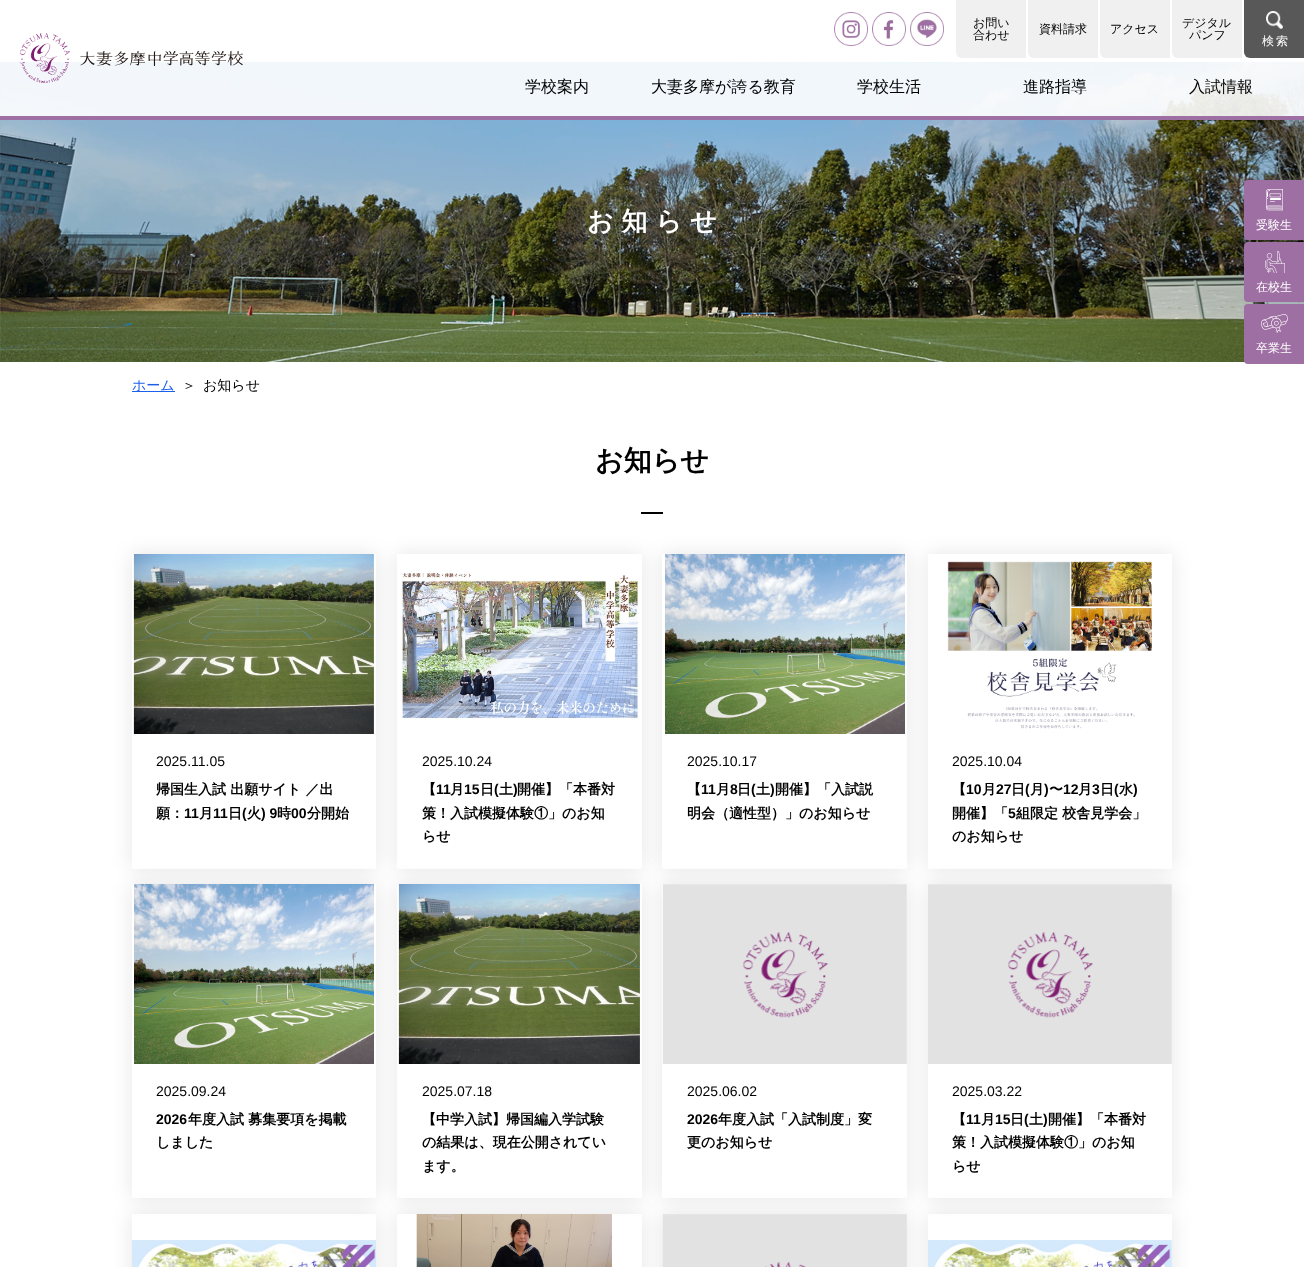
(async () => {
    const canvas = document.querySelector("canvas");
    canvas.width = 1304;
    canvas.height = 1267;
    const context = canvas.getContext("2d");
    context.miterLimit = 4;
    context.fontKerning = "normal";
    function write(s, x, y, font, color) {
        context.font = font;
        context.fillStyle = color;
        context.fillText(s, x, y);
    }
    function block(x, y, w, h, color) {
        context.fillStyle = color;
        context.fillRect(x, y, w, h);
    }
    async function photo(src, x, y, w, h) {
        const img = new Image();
        img.src = src;
        await img.decode();
        context.drawImage(img, x, y, w, h);
    }

    block(0, 0, 1304, 1267, "rgb(255, 255, 255)");
    await photo("media/7.png", 0, 62, 1304, 300);
    block(0, 62, 1304, 54, "rgba(255, 255, 255, 0.9)");
    block(0, 116, 1304, 4, "rgb(158, 111, 162)");
    await photo("media/1.png", 20, 33, 50, 50);
    await photo("media/2.png", 80, 51, 163, 15);
    await photo("media/3.png", 834, 12, 34, 34);
    await photo("media/4.png", 872, 12, 34, 34);
    await photo("media/5.png", 910, 12, 34, 34);
    context.fillStyle = "rgb(240, 240, 240)";
    context.beginPath();
    context.roundRect(956, 0, 70, 58, [0, 0, 0, 6]);
    context.fill();
    write("お問い", 973, 27, "500 12px WenQuanYi Zen Hei", "rgb(0, 0, 0)");
    write("合わせ", 973, 39, "500 12px WenQuanYi Zen Hei", "rgb(0, 0, 0)");
    context.fillStyle = "rgb(240, 240, 240)";
    context.beginPath();
    context.roundRect(1028, 0, 70, 58, [0, 0, 0, 6]);
    context.fill();
    write("資料請求", 1039, 33, "500 12px WenQuanYi Zen Hei", "rgb(0, 0, 0)");
    context.fillStyle = "rgb(240, 240, 240)";
    context.beginPath();
    context.roundRect(1100, 0, 70, 58, [0, 0, 0, 6]);
    context.fill();
    write("アクセス", 1110, 33, "500 12px WenQuanYi Zen Hei", "rgb(0, 0, 0)");
    context.fillStyle = "rgb(240, 240, 240)";
    context.beginPath();
    context.roundRect(1172, 0, 70, 58, [0, 0, 0, 6]);
    context.fill();
    write("デジタル", 1182, 27, "500 12px WenQuanYi Zen Hei", "rgb(0, 0, 0)");
    write("パンフ", 1189, 39, "500 12px WenQuanYi Zen Hei", "rgb(0, 0, 0)");
    context.fillStyle = "rgb(88, 88, 88)";
    context.beginPath();
    context.roundRect(1244, 0, 60, 58, [0, 0, 0, 6]);
    context.fill();
    await photo("media/6.png", 1266, 11, 17, 18);
    context.letterSpacing = "2px";
    write("検索", 1262, 45, "500 12px WenQuanYi Zen Hei", "rgb(255, 255, 255)");
    context.letterSpacing = "0px";
    write("学校案内", 525, 92, "500 16px WenQuanYi Zen Hei", "rgb(0, 0, 0)");
    write("大妻多摩が誇る教育", 651, 92, "500 16px WenQuanYi Zen Hei", "rgb(0, 0, 0)");
    write("学校生活", 857, 92, "500 16px WenQuanYi Zen Hei", "rgb(0, 0, 0)");
    write("進路指導", 1023, 92, "500 16px WenQuanYi Zen Hei", "rgb(0, 0, 0)");
    write("入試情報", 1189, 92, "500 16px WenQuanYi Zen Hei", "rgb(0, 0, 0)");
    context.letterSpacing = "8px";
    write("お知らせ", 587, 230, "bold 26px WenQuanYi Zen Hei", "rgb(255, 255, 255)");
    block(132, 391, 43, 1, "rgb(27, 95, 235)");
    context.letterSpacing = "0px";
    write("ホーム", 132, 390, "500 14px WenQuanYi Zen Hei", "rgb(27, 95, 235)");
    write("＞", 182, 390, "500 14px WenQuanYi Zen Hei", "rgb(0, 0, 0)");
    write("お知らせ", 203, 390, "500 14px WenQuanYi Zen Hei", "rgb(0, 0, 0)");
    write("お知らせ", 595, 470, "bold 28px WenQuanYi Zen Hei", "rgb(0, 0, 0)");
    block(641, 512, 22, 2, "rgb(0, 0, 0)");
    context.save();
    context.beginPath();
    context.moveTo(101, 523);
    context.lineTo(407, 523);
    context.lineTo(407, 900);
    context.lineTo(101, 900);
    context.closePath();
    context.moveTo(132, 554);
    context.lineTo(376, 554);
    context.lineTo(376, 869);
    context.lineTo(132, 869);
    context.closePath();
    context.clip("evenodd");
    context.fillStyle = "rgba(0, 0, 0, 0.1)";
    context.filter = "blur(10px)";
    context.beginPath();
    context.rect(132, 554, 244, 315);
    context.fill();
    context.filter = "none";
    context.restore();
    context.save();
    context.beginPath();
    context.moveTo(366, 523);
    context.lineTo(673, 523);
    context.lineTo(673, 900);
    context.lineTo(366, 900);
    context.closePath();
    context.moveTo(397, 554);
    context.lineTo(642, 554);
    context.lineTo(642, 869);
    context.lineTo(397, 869);
    context.closePath();
    context.clip("evenodd");
    context.fillStyle = "rgba(0, 0, 0, 0.1)";
    context.filter = "blur(10px)";
    context.beginPath();
    context.rect(397, 554, 245, 315);
    context.fill();
    context.filter = "none";
    context.restore();
    await photo("media/8.png", 133, 554, 241, 180);
    write("2025.11.05", 156, 766, "14px Liberation Sans", "rgb(0, 0, 0)");
    write("帰国生入試 出願サイト ／出", 156, 794, "bold 14px WenQuanYi Zen Hei", "rgb(0, 0, 0)");
    write("願：", 156, 818, "bold 14px WenQuanYi Zen Hei", "rgb(0, 0, 0)");
    write("11", 184, 818, "bold 14px Liberation Sans", "rgb(0, 0, 0)");
    write("月", 199, 818, "bold 14px WenQuanYi Zen Hei", "rgb(0, 0, 0)");
    write("11", 213, 818, "bold 14px Liberation Sans", "rgb(0, 0, 0)");
    write("日", 228, 818, "bold 14px WenQuanYi Zen Hei", "rgb(0, 0, 0)");
    write("(", 242, 818, "bold 14px Liberation Sans", "rgb(0, 0, 0)");
    write("火", 247, 818, "bold 14px WenQuanYi Zen Hei", "rgb(0, 0, 0)");
    write(") 9", 261, 818, "bold 14px Liberation Sans", "rgb(0, 0, 0)");
    write("時", 277, 818, "bold 14px WenQuanYi Zen Hei", "rgb(0, 0, 0)");
    write("00", 291, 818, "bold 14px Liberation Sans", "rgb(0, 0, 0)");
    write("分開始", 307, 818, "bold 14px WenQuanYi Zen Hei", "rgb(0, 0, 0)");
    context.save();
    context.beginPath();
    context.moveTo(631, 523);
    context.lineTo(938, 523);
    context.lineTo(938, 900);
    context.lineTo(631, 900);
    context.closePath();
    context.moveTo(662, 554);
    context.lineTo(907, 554);
    context.lineTo(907, 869);
    context.lineTo(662, 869);
    context.closePath();
    context.clip("evenodd");
    context.fillStyle = "rgba(0, 0, 0, 0.1)";
    context.filter = "blur(10px)";
    context.beginPath();
    context.rect(662, 554, 245, 315);
    context.fill();
    context.filter = "none";
    context.restore();
    await photo("media/9.png", 401, 573, 238, 146);
    write("2025.10.24", 422, 766, "14px Liberation Sans", "rgb(0, 0, 0)");
    write("【", 422, 794, "bold 14px WenQuanYi Zen Hei", "rgb(0, 0, 0)");
    write("11", 436, 794, "bold 14px Liberation Sans", "rgb(0, 0, 0)");
    write("月", 450, 794, "bold 14px WenQuanYi Zen Hei", "rgb(0, 0, 0)");
    write("15", 464, 794, "bold 14px Liberation Sans", "rgb(0, 0, 0)");
    write("日", 480, 794, "bold 14px WenQuanYi Zen Hei", "rgb(0, 0, 0)");
    write("(", 494, 794, "bold 14px Liberation Sans", "rgb(0, 0, 0)");
    write("土", 499, 794, "bold 14px WenQuanYi Zen Hei", "rgb(0, 0, 0)");
    write(")", 513, 794, "bold 14px Liberation Sans", "rgb(0, 0, 0)");
    write("開催】「本番対", 517, 794, "bold 14px WenQuanYi Zen Hei", "rgb(0, 0, 0)");
    write("策！入試模擬体験①」のお知", 422, 818, "bold 14px WenQuanYi Zen Hei", "rgb(0, 0, 0)");
    write("らせ", 422, 841, "bold 14px WenQuanYi Zen Hei", "rgb(0, 0, 0)");
    context.save();
    context.beginPath();
    context.moveTo(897, 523);
    context.lineTo(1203, 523);
    context.lineTo(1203, 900);
    context.lineTo(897, 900);
    context.closePath();
    context.moveTo(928, 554);
    context.lineTo(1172, 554);
    context.lineTo(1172, 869);
    context.lineTo(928, 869);
    context.closePath();
    context.clip("evenodd");
    context.fillStyle = "rgba(0, 0, 0, 0.1)";
    context.filter = "blur(10px)";
    context.beginPath();
    context.rect(928, 554, 244, 315);
    context.fill();
    context.filter = "none";
    context.restore();
    await photo("media/10.png", 665, 554, 240, 180);
    write("2025.10.17", 687, 766, "14px Liberation Sans", "rgb(0, 0, 0)");
    write("【", 687, 794, "bold 14px WenQuanYi Zen Hei", "rgb(0, 0, 0)");
    write("11", 701, 794, "bold 14px Liberation Sans", "rgb(0, 0, 0)");
    write("月", 716, 794, "bold 14px WenQuanYi Zen Hei", "rgb(0, 0, 0)");
    write("8", 730, 794, "bold 14px Liberation Sans", "rgb(0, 0, 0)");
    write("日", 737, 794, "bold 14px WenQuanYi Zen Hei", "rgb(0, 0, 0)");
    write("(", 751, 794, "bold 14px Liberation Sans", "rgb(0, 0, 0)");
    write("土", 756, 794, "bold 14px WenQuanYi Zen Hei", "rgb(0, 0, 0)");
    write(")", 770, 794, "bold 14px Liberation Sans", "rgb(0, 0, 0)");
    write("開催】「入試説", 775, 794, "bold 14px WenQuanYi Zen Hei", "rgb(0, 0, 0)");
    write("明会（適性型）」のお知らせ", 687, 818, "bold 14px WenQuanYi Zen Hei", "rgb(0, 0, 0)");
    await photo("media/11.png", 947, 561, 205, 168);
    write("2025.10.04", 952, 766, "14px Liberation Sans", "rgb(0, 0, 0)");
    write("【", 952, 794, "bold 14px WenQuanYi Zen Hei", "rgb(0, 0, 0)");
    write("10", 966, 794, "bold 14px Liberation Sans", "rgb(0, 0, 0)");
    write("月", 982, 794, "bold 14px WenQuanYi Zen Hei", "rgb(0, 0, 0)");
    write("27", 996, 794, "bold 14px Liberation Sans", "rgb(0, 0, 0)");
    write("日", 1011, 794, "bold 14px WenQuanYi Zen Hei", "rgb(0, 0, 0)");
    write("(", 1025, 794, "bold 14px Liberation Sans", "rgb(0, 0, 0)");
    write("月", 1030, 794, "bold 14px WenQuanYi Zen Hei", "rgb(0, 0, 0)");
    write(")", 1044, 794, "bold 14px Liberation Sans", "rgb(0, 0, 0)");
    write("〜", 1049, 794, "bold 14px WenQuanYi Zen Hei", "rgb(0, 0, 0)");
    write("12", 1063, 794, "bold 14px Liberation Sans", "rgb(0, 0, 0)");
    write("月", 1078, 794, "bold 14px WenQuanYi Zen Hei", "rgb(0, 0, 0)");
    write("3", 1092, 794, "bold 14px Liberation Sans", "rgb(0, 0, 0)");
    write("日", 1100, 794, "bold 14px WenQuanYi Zen Hei", "rgb(0, 0, 0)");
    write("(", 1114, 794, "bold 14px Liberation Sans", "rgb(0, 0, 0)");
    write("水", 1119, 794, "bold 14px WenQuanYi Zen Hei", "rgb(0, 0, 0)");
    write(")", 1133, 794, "bold 14px Liberation Sans", "rgb(0, 0, 0)");
    write("開催】「", 952, 818, "bold 14px WenQuanYi Zen Hei", "rgb(0, 0, 0)");
    write("5", 1008, 818, "bold 14px Liberation Sans", "rgb(0, 0, 0)");
    write("組限定 校舎見学会」", 1016, 818, "bold 14px WenQuanYi Zen Hei", "rgb(0, 0, 0)");
    write("のお知らせ", 952, 841, "bold 14px WenQuanYi Zen Hei", "rgb(0, 0, 0)");
    context.save();
    context.beginPath();
    context.moveTo(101, 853);
    context.lineTo(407, 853);
    context.lineTo(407, 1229);
    context.lineTo(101, 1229);
    context.closePath();
    context.moveTo(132, 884);
    context.lineTo(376, 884);
    context.lineTo(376, 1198);
    context.lineTo(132, 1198);
    context.closePath();
    context.clip("evenodd");
    context.fillStyle = "rgba(0, 0, 0, 0.1)";
    context.filter = "blur(10px)";
    context.beginPath();
    context.rect(132, 884, 244, 314);
    context.fill();
    context.filter = "none";
    context.restore();
    context.save();
    context.beginPath();
    context.moveTo(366, 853);
    context.lineTo(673, 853);
    context.lineTo(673, 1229);
    context.lineTo(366, 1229);
    context.closePath();
    context.moveTo(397, 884);
    context.lineTo(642, 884);
    context.lineTo(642, 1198);
    context.lineTo(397, 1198);
    context.closePath();
    context.clip("evenodd");
    context.fillStyle = "rgba(0, 0, 0, 0.1)";
    context.filter = "blur(10px)";
    context.beginPath();
    context.rect(397, 884, 245, 314);
    context.fill();
    context.filter = "none";
    context.restore();
    await photo("media/12.png", 134, 884, 240, 180);
    write("2025.09.24", 156, 1096, "14px Liberation Sans", "rgb(0, 0, 0)");
    write("2026", 156, 1124, "bold 14px Liberation Sans", "rgb(0, 0, 0)");
    write("年度入試 募集要項を掲載", 188, 1124, "bold 14px WenQuanYi Zen Hei", "rgb(0, 0, 0)");
    write("しました", 156, 1147, "bold 14px WenQuanYi Zen Hei", "rgb(0, 0, 0)");
    context.save();
    context.beginPath();
    context.moveTo(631, 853);
    context.lineTo(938, 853);
    context.lineTo(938, 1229);
    context.lineTo(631, 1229);
    context.closePath();
    context.moveTo(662, 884);
    context.lineTo(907, 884);
    context.lineTo(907, 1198);
    context.lineTo(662, 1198);
    context.closePath();
    context.clip("evenodd");
    context.fillStyle = "rgba(0, 0, 0, 0.1)";
    context.filter = "blur(10px)";
    context.beginPath();
    context.rect(662, 884, 245, 314);
    context.fill();
    context.filter = "none";
    context.restore();
    await photo("media/13.png", 398, 884, 242, 180);
    write("2025.07.18", 422, 1096, "14px Liberation Sans", "rgb(0, 0, 0)");
    write("【中学入試】帰国編入学試験", 422, 1124, "bold 14px WenQuanYi Zen Hei", "rgb(0, 0, 0)");
    write("の結果は、現在公開されてい", 422, 1147, "bold 14px WenQuanYi Zen Hei", "rgb(0, 0, 0)");
    write("ます。", 422, 1171, "bold 14px WenQuanYi Zen Hei", "rgb(0, 0, 0)");
    context.save();
    context.beginPath();
    context.moveTo(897, 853);
    context.lineTo(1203, 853);
    context.lineTo(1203, 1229);
    context.lineTo(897, 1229);
    context.closePath();
    context.moveTo(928, 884);
    context.lineTo(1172, 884);
    context.lineTo(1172, 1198);
    context.lineTo(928, 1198);
    context.closePath();
    context.clip("evenodd");
    context.fillStyle = "rgba(0, 0, 0, 0.1)";
    context.filter = "blur(10px)";
    context.beginPath();
    context.rect(928, 884, 244, 314);
    context.fill();
    context.filter = "none";
    context.restore();
    await photo("media/14.png", 662, 884, 245, 180);
    write("2025.06.02", 687, 1096, "14px Liberation Sans", "rgb(0, 0, 0)");
    write("2026", 687, 1124, "bold 14px Liberation Sans", "rgb(0, 0, 0)");
    write("年度入試「入試制度」変", 718, 1124, "bold 14px WenQuanYi Zen Hei", "rgb(0, 0, 0)");
    write("更のお知らせ", 687, 1147, "bold 14px WenQuanYi Zen Hei", "rgb(0, 0, 0)");
    await photo("media/15.png", 928, 884, 244, 180);
    write("2025.03.22", 952, 1096, "14px Liberation Sans", "rgb(0, 0, 0)");
    write("【", 952, 1124, "bold 14px WenQuanYi Zen Hei", "rgb(0, 0, 0)");
    write("11", 966, 1124, "bold 14px Liberation Sans", "rgb(0, 0, 0)");
    write("月", 981, 1124, "bold 14px WenQuanYi Zen Hei", "rgb(0, 0, 0)");
    write("15", 995, 1124, "bold 14px Liberation Sans", "rgb(0, 0, 0)");
    write("日", 1010, 1124, "bold 14px WenQuanYi Zen Hei", "rgb(0, 0, 0)");
    write("(", 1024, 1124, "bold 14px Liberation Sans", "rgb(0, 0, 0)");
    write("土", 1029, 1124, "bold 14px WenQuanYi Zen Hei", "rgb(0, 0, 0)");
    write(")", 1043, 1124, "bold 14px Liberation Sans", "rgb(0, 0, 0)");
    write("開催】「本番対", 1048, 1124, "bold 14px WenQuanYi Zen Hei", "rgb(0, 0, 0)");
    write("策！入試模擬体験①」のお知", 952, 1147, "bold 14px WenQuanYi Zen Hei", "rgb(0, 0, 0)");
    write("らせ", 952, 1171, "bold 14px WenQuanYi Zen Hei", "rgb(0, 0, 0)");
    context.save();
    context.beginPath();
    context.moveTo(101, 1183);
    context.lineTo(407, 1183);
    context.lineTo(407, 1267);
    context.lineTo(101, 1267);
    context.closePath();
    context.moveTo(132, 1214);
    context.lineTo(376, 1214);
    context.lineTo(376, 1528);
    context.lineTo(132, 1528);
    context.closePath();
    context.clip("evenodd");
    context.fillStyle = "rgba(0, 0, 0, 0.1)";
    context.filter = "blur(10px)";
    context.beginPath();
    context.rect(132, 1214, 244, 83);
    context.fill();
    context.filter = "none";
    context.restore();
    context.save();
    context.beginPath();
    context.moveTo(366, 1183);
    context.lineTo(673, 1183);
    context.lineTo(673, 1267);
    context.lineTo(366, 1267);
    context.closePath();
    context.moveTo(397, 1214);
    context.lineTo(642, 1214);
    context.lineTo(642, 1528);
    context.lineTo(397, 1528);
    context.closePath();
    context.clip("evenodd");
    context.fillStyle = "rgba(0, 0, 0, 0.1)";
    context.filter = "blur(10px)";
    context.beginPath();
    context.rect(397, 1214, 245, 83);
    context.fill();
    context.filter = "none";
    context.restore();
    await photo("media/16.png", 132, 1240, 244, 27);
    await photo("media/17.png", 416, 1214, 196, 53);
    context.fillStyle = "rgba(0, 0, 0, 0.1)";
    context.filter = "blur(10px)";
    context.beginPath();
    context.rect(662, 1214, 245, 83);
    context.fill();
    context.filter = "none";
    context.save();
    context.beginPath();
    context.moveTo(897, 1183);
    context.lineTo(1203, 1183);
    context.lineTo(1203, 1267);
    context.lineTo(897, 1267);
    context.closePath();
    context.moveTo(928, 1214);
    context.lineTo(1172, 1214);
    context.lineTo(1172, 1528);
    context.lineTo(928, 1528);
    context.closePath();
    context.clip("evenodd");
    context.filter = "blur(10px)";
    context.beginPath();
    context.rect(928, 1214, 244, 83);
    context.fill();
    context.filter = "none";
    context.restore();
    await photo("media/18.png", 662, 1214, 245, 53);
    await photo("media/19.png", 928, 1240, 244, 27);
    context.fillStyle = "rgb(158, 111, 162)";
    context.beginPath();
    context.roundRect(1244, 180, 60, 60, [4, 0, 0, 4]);
    context.fill();
    await photo("media/20.png", 1266, 189, 17, 22);
    write("受験生", 1256, 229, "500 12px WenQuanYi Zen Hei", "rgb(255, 255, 255)");
    context.fillStyle = "rgb(158, 111, 162)";
    context.beginPath();
    context.roundRect(1244, 242, 60, 60, [4, 0, 0, 4]);
    context.fill();
    await photo("media/21.png", 1265, 251, 20, 22);
    write("在校生", 1256, 291, "500 12px WenQuanYi Zen Hei", "rgb(255, 255, 255)");
    context.fillStyle = "rgb(158, 111, 162)";
    context.beginPath();
    context.roundRect(1244, 304, 60, 60, [4, 0, 0, 4]);
    context.fill();
    await photo("media/22.png", 1261, 314, 27, 19);
    write("卒業生", 1256, 352, "500 12px WenQuanYi Zen Hei", "rgb(255, 255, 255)");
})();
